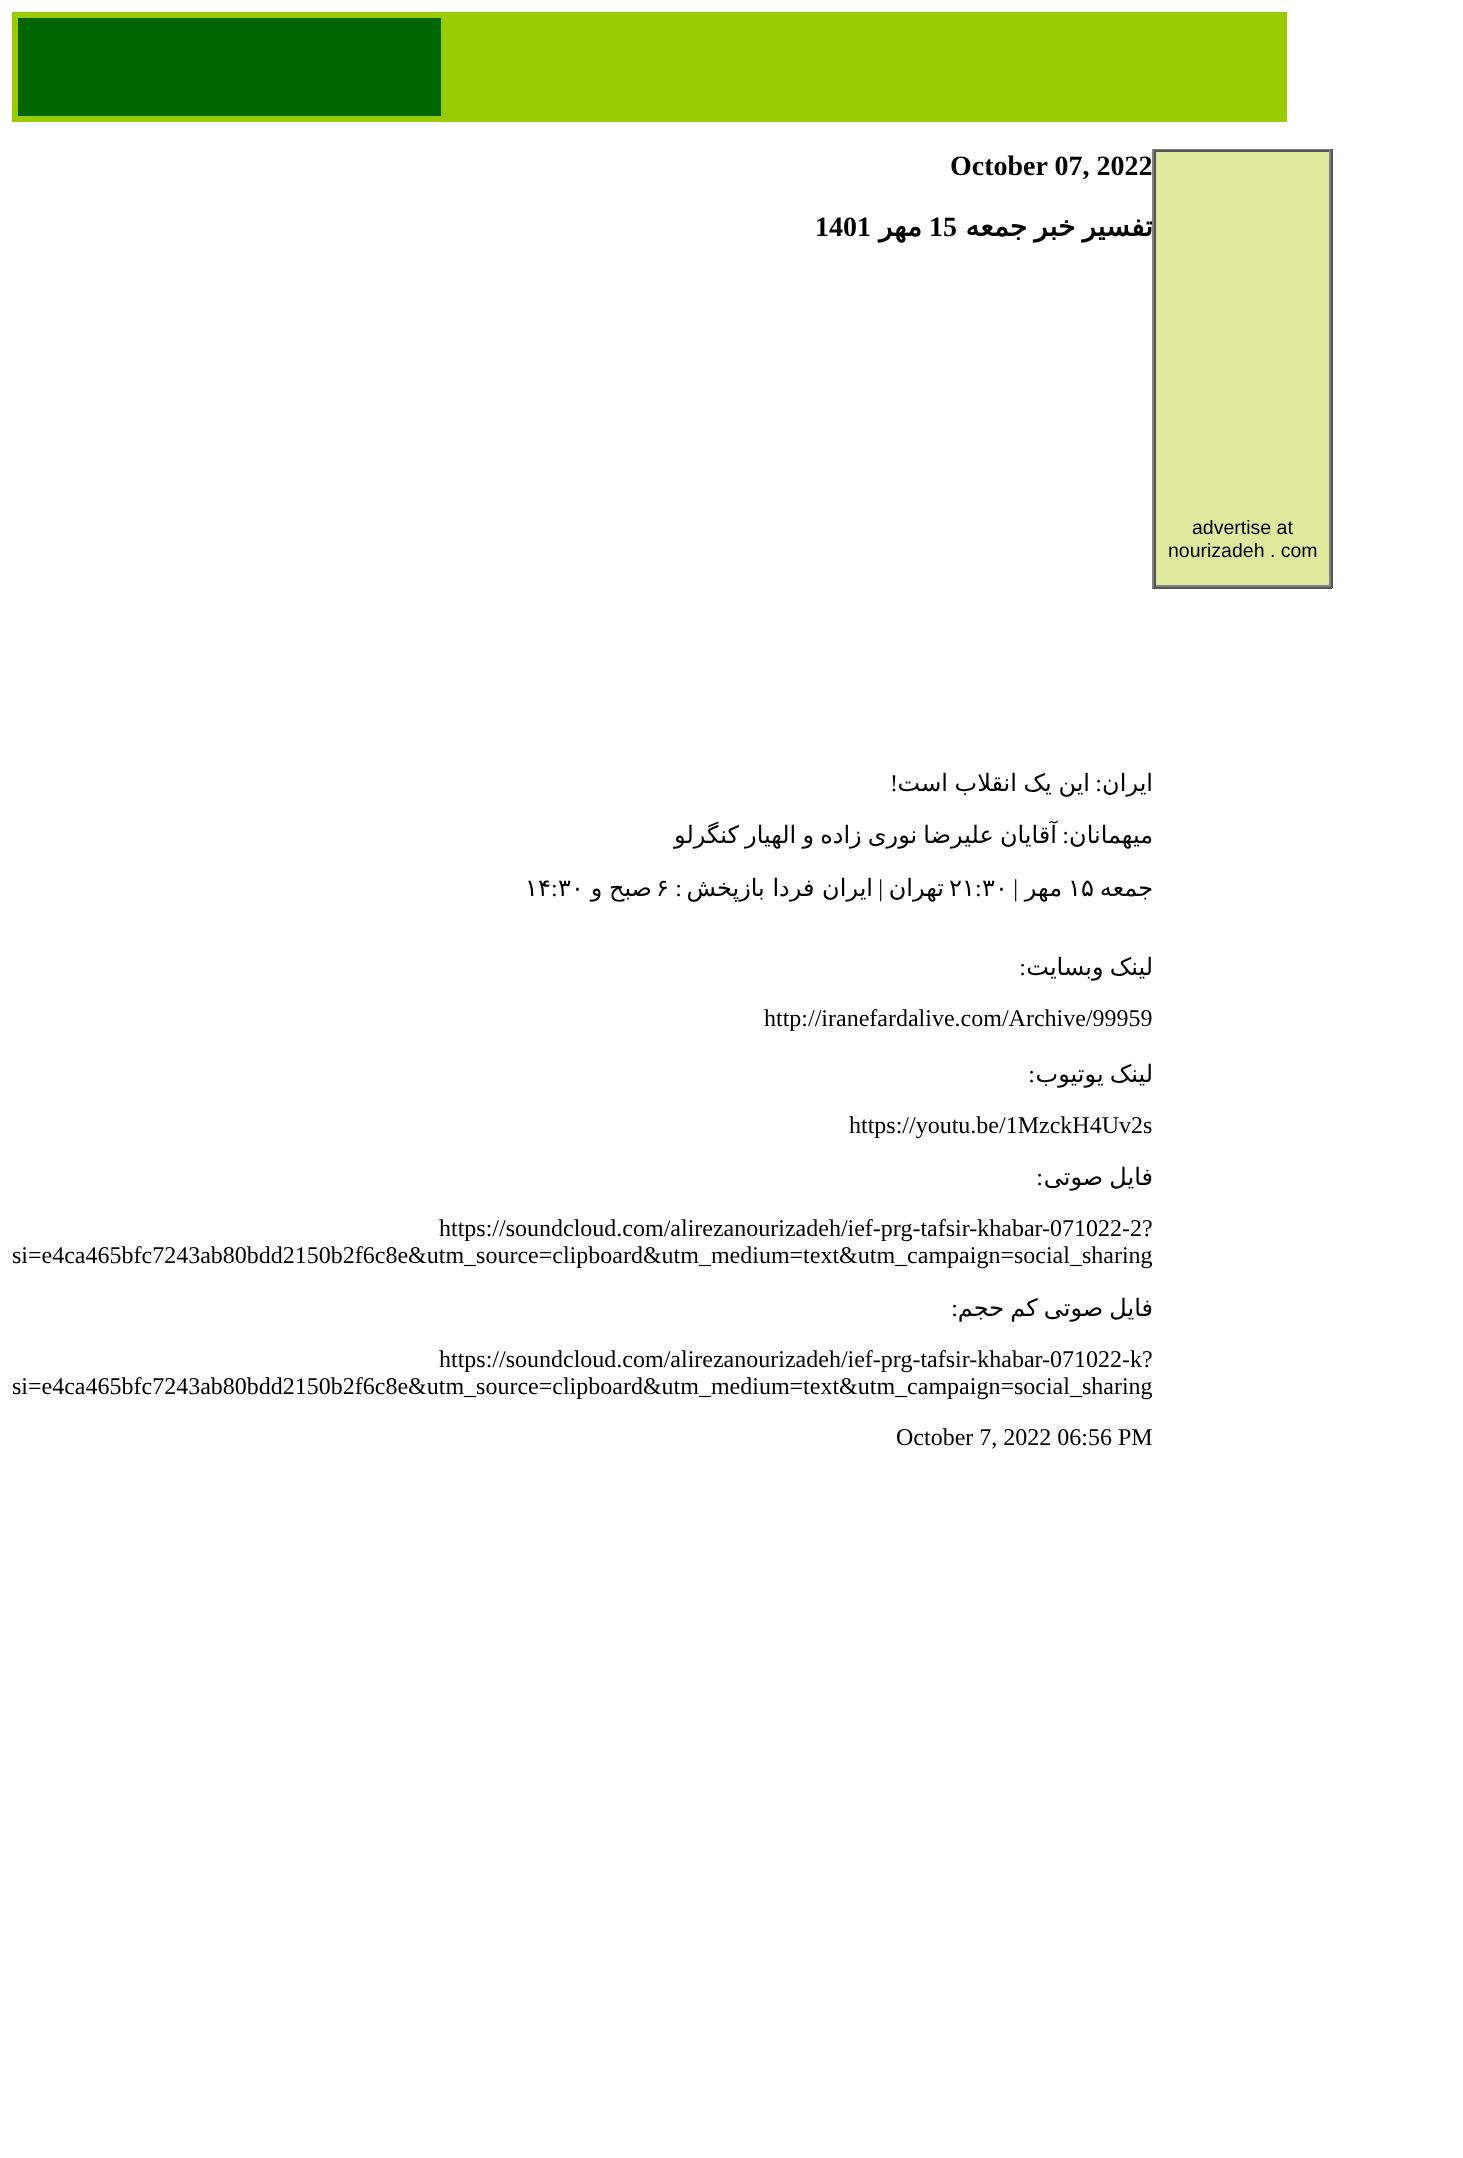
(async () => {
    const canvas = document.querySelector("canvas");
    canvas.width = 1463;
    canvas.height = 2158;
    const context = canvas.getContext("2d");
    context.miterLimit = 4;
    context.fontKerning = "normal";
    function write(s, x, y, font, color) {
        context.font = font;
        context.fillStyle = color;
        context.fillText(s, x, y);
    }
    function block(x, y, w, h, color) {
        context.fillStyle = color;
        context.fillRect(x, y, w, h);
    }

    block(0, 0, 1463, 2158, "rgb(255, 255, 255)");
    block(12, 12, 1275, 110, "rgb(153, 204, 0)");
    block(18, 18, 423, 98, "rgb(0, 102, 0)");
    write("October 07, 2022", 950, 175, "bold 28px Liberation Serif", "rgb(0, 0, 0)");
    write("1401", 815, 236, "bold 28px Liberation Serif", "rgb(0, 0, 0)");
    context.direction = "rtl";
    write("مهر", 922, 236, "bold 28px DejaVu Sans", "rgb(0, 0, 0)");
    context.direction = "ltr";
    write("15", 929, 236, "bold 28px Liberation Serif", "rgb(0, 0, 0)");
    context.wordSpacing = "-2px";
    context.direction = "rtl";
    write("تفسیر خبر جمعه", 1153, 236, "bold 28px DejaVu Sans", "rgb(0, 0, 0)");
    context.wordSpacing = "0px";
    write("!", 898, 791, "24px Liberation Serif", "rgb(0, 0, 0)");
    context.wordSpacing = "-1px";
    write("این یک انقلاب است", 1090, 791, "24px DejaVu Sans", "rgb(0, 0, 0)");
    context.wordSpacing = "0px";
    write(":", 1102, 791, "24px Liberation Serif", "rgb(0, 0, 0)");
    write("ایران", 1153, 791, "24px DejaVu Sans", "rgb(0, 0, 0)");
    context.wordSpacing = "-1.5px";
    write("آقایان علیرضا نوری زاده و الهیار کنگرلو", 1057, 843, "24px DejaVu Sans", "rgb(0, 0, 0)");
    context.wordSpacing = "0px";
    write(":", 1069, 843, "24px Liberation Serif", "rgb(0, 0, 0)");
    write("میهمانان", 1153, 843, "24px DejaVu Sans", "rgb(0, 0, 0)");
    context.direction = "ltr";
    write("۱۴", 525, 896, "24px DejaVu Sans", "rgb(0, 0, 0)");
    write(":", 551, 896, "24px Liberation Serif", "rgb(0, 0, 0)");
    write("۳۰", 558, 896, "24px DejaVu Sans", "rgb(0, 0, 0)");
    context.wordSpacing = "-1px";
    context.direction = "rtl";
    write("صبح و", 652, 896, "24px DejaVu Sans", "rgb(0, 0, 0)");
    context.wordSpacing = "0px";
    context.direction = "ltr";
    write("۶", 656, 896, "24px DejaVu Sans", "rgb(0, 0, 0)");
    context.direction = "rtl";
    write(":", 682, 896, "24px Liberation Serif", "rgb(0, 0, 0)");
    write("ایران فردا بازپخش", 873, 896, "24px DejaVu Sans", "rgb(0, 0, 0)");
    write("|", 883, 896, "24px Liberation Serif", "rgb(0, 0, 0)");
    write("تهران", 944, 896, "24px DejaVu Sans", "rgb(0, 0, 0)");
    context.direction = "ltr";
    write("۲۱", 949, 896, "24px DejaVu Sans", "rgb(0, 0, 0)");
    write(":", 975, 896, "24px Liberation Serif", "rgb(0, 0, 0)");
    write("۳۰", 982, 896, "24px DejaVu Sans", "rgb(0, 0, 0)");
    context.direction = "rtl";
    write("|", 1018, 896, "24px Liberation Serif", "rgb(0, 0, 0)");
    write("مهر", 1062, 896, "24px DejaVu Sans", "rgb(0, 0, 0)");
    context.direction = "ltr";
    write("۱۵", 1068, 896, "24px DejaVu Sans", "rgb(0, 0, 0)");
    context.direction = "rtl";
    write("جمعه", 1153, 896, "24px DejaVu Sans", "rgb(0, 0, 0)");
    write(":", 1026, 975, "24px Liberation Serif", "rgb(0, 0, 0)");
    context.wordSpacing = "-1.5px";
    write("لینک وبسایت", 1153, 975, "24px DejaVu Sans", "rgb(0, 0, 0)");
    context.wordSpacing = "0px";
    context.direction = "ltr";
    write("http://iranefardalive.com/Archive/99959", 764, 1026, "24px Liberation Serif", "rgb(0, 0, 0)");
    context.direction = "rtl";
    write(":", 1035, 1082, "24px Liberation Serif", "rgb(0, 0, 0)");
    context.wordSpacing = "-1.5px";
    write("لینک یوتیوب", 1153, 1082, "24px DejaVu Sans", "rgb(0, 0, 0)");
    context.wordSpacing = "0px";
    context.direction = "ltr";
    write("https://youtu.be/1MzckH4Uv2s", 849, 1133, "24px Liberation Serif", "rgb(0, 0, 0)");
    context.direction = "rtl";
    write(":", 1043, 1185, "24px Liberation Serif", "rgb(0, 0, 0)");
    context.wordSpacing = "-1.5px";
    write("فایل صوتی", 1153, 1185, "24px DejaVu Sans", "rgb(0, 0, 0)");
    context.wordSpacing = "0px";
    context.direction = "ltr";
    write("https://soundcloud.com/alirezanourizadeh/ief-prg-tafsir-khabar-071022-2?", 439, 1236, "24px Liberation Serif", "rgb(0, 0, 0)");
    write("si=e4ca465bfc7243ab80bdd2150b2f6c8e&utm_source=clipboard&utm_medium=text&utm_campaign=social_sharing", 12, 1263, "24px Liberation Serif", "rgb(0, 0, 0)");
    context.direction = "rtl";
    write(":", 958, 1316, "24px Liberation Serif", "rgb(0, 0, 0)");
    context.wordSpacing = "-1.5px";
    write("فایل صوتی کم حجم", 1153, 1316, "24px DejaVu Sans", "rgb(0, 0, 0)");
    context.wordSpacing = "0px";
    context.direction = "ltr";
    write("https://soundcloud.com/alirezanourizadeh/ief-prg-tafsir-khabar-071022-k?", 439, 1367, "24px Liberation Serif", "rgb(0, 0, 0)");
    write("si=e4ca465bfc7243ab80bdd2150b2f6c8e&utm_source=clipboard&utm_medium=text&utm_campaign=social_sharing", 12, 1394, "24px Liberation Serif", "rgb(0, 0, 0)");
    write("October 7, 2022 06:56 PM", 896, 1445, "24px Liberation Serif", "rgb(0, 0, 0)");
    block(1152, 149, 180, 1, "rgb(128, 128, 128)");
    block(1331, 149, 2, 439, "rgb(85, 85, 85)");
    block(1152, 587, 180, 2, "rgb(85, 85, 85)");
    block(1152, 149, 2, 439, "rgb(128, 128, 128)");
    block(1156, 152, 173, 433, "rgb(222, 233, 158)");
    block(1154, 150, 177, 2, "rgb(85, 85, 85)");
    block(1329, 150, 2, 437, "rgb(128, 128, 128)");
    block(1154, 585, 177, 2, "rgb(128, 128, 128)");
    block(1154, 150, 2, 437, "rgb(85, 85, 85)");
    write("advertise at", 1192, 534, "19.5px Liberation Sans", "rgb(0, 0, 0)");
    write("nourizadeh . com", 1168, 557, "19.5px Liberation Sans", "rgb(0, 0, 0)");
})();
